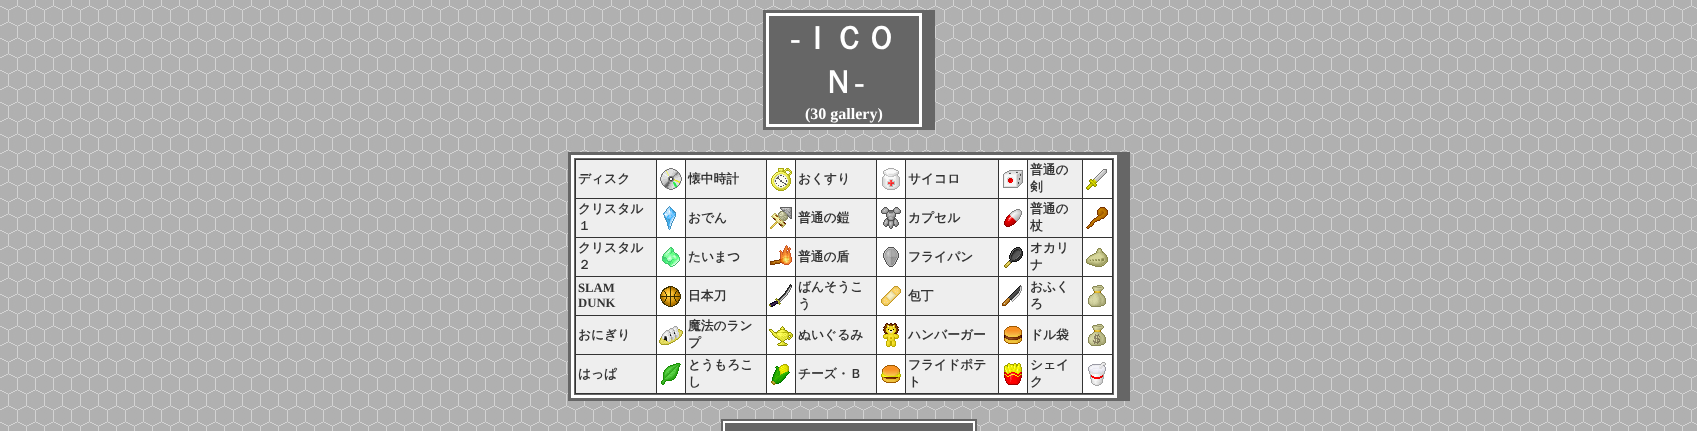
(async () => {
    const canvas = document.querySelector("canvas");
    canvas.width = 1697;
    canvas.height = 431;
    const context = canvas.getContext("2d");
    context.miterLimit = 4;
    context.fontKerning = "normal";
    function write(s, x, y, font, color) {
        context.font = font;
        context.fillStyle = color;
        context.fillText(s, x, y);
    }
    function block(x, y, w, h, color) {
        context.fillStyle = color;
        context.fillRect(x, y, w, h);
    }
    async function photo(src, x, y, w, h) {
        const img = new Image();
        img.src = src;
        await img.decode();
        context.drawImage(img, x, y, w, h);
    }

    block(0, 0, 1697, 431, "rgb(255, 255, 255)");
    await photo("media/1.png", 0, 0, 1697, 431);
    block(763, 10, 172, 120, "rgb(102, 102, 102)");
    block(766, 13, 156, 114, "rgb(255, 255, 255)");
    block(769, 16, 150, 108, "rgb(102, 102, 102)");
    write("-", 790, 49, "bold 32px Liberation Serif", "rgb(255, 255, 255)");
    write("ＩＣＯ", 801, 49, "bold 32px WenQuanYi Zen Hei", "rgb(255, 255, 255)");
    write("Ｎ", 822, 93, "bold 32px WenQuanYi Zen Hei", "rgb(255, 255, 255)");
    write("-", 854, 93, "bold 32px Liberation Serif", "rgb(255, 255, 255)");
    write("(30 gallery)", 805, 119, "bold 16px Liberation Serif", "rgb(255, 255, 255)");
    block(568, 152, 562, 249, "rgb(102, 102, 102)");
    block(571, 155, 546, 243, "rgb(255, 255, 255)");
    block(574, 158, 540, 237, "rgb(102, 102, 102)");
    block(576, 160, 537, 234, "rgb(51, 51, 51)");
    block(575, 159, 538, 1, "rgb(51, 51, 51)");
    block(575, 159, 1, 235, "rgb(51, 51, 51)");
    block(576, 160, 80, 38, "rgb(238, 238, 238)");
    write("ディスク", 578, 183, "bold 12.75px WenQuanYi Zen Hei", "rgb(51, 51, 51)");
    block(657, 160, 28, 38, "rgb(255, 255, 255)");
    await photo("media/2.png", 660, 168, 22, 22);
    block(686, 160, 80, 38, "rgb(238, 238, 238)");
    write("懐中時計", 688, 183, "bold 12.75px WenQuanYi Zen Hei", "rgb(51, 51, 51)");
    block(767, 160, 28, 38, "rgb(255, 255, 255)");
    await photo("media/3.png", 771, 168, 21, 23);
    block(796, 160, 80, 38, "rgb(238, 238, 238)");
    write("おくすり", 798, 183, "bold 12.75px WenQuanYi Zen Hei", "rgb(51, 51, 51)");
    block(877, 160, 28, 38, "rgb(255, 255, 255)");
    await photo("media/4.png", 882, 168, 18, 22);
    block(906, 160, 92, 38, "rgb(238, 238, 238)");
    write("サイコロ", 908, 183, "bold 12.75px WenQuanYi Zen Hei", "rgb(51, 51, 51)");
    block(999, 160, 28, 38, "rgb(255, 255, 255)");
    await photo("media/5.png", 1003, 170, 20, 18);
    block(1028, 160, 54, 38, "rgb(238, 238, 238)");
    write("普通の", 1030, 174, "bold 12.75px WenQuanYi Zen Hei", "rgb(51, 51, 51)");
    write("剣", 1030, 191, "bold 12.75px WenQuanYi Zen Hei", "rgb(51, 51, 51)");
    block(1083, 160, 29, 38, "rgb(255, 255, 255)");
    await photo("media/6.png", 1086, 169, 21, 21);
    block(576, 199, 80, 38, "rgb(238, 238, 238)");
    write("クリスタル", 578, 213, "bold 12.75px WenQuanYi Zen Hei", "rgb(51, 51, 51)");
    write("１", 578, 230, "bold 12.75px WenQuanYi Zen Hei", "rgb(51, 51, 51)");
    block(657, 199, 28, 38, "rgb(255, 255, 255)");
    await photo("media/7.png", 663, 206, 13, 24);
    block(686, 199, 80, 38, "rgb(238, 238, 238)");
    write("おでん", 688, 222, "bold 12.75px WenQuanYi Zen Hei", "rgb(51, 51, 51)");
    block(767, 199, 28, 38, "rgb(255, 255, 255)");
    await photo("media/8.png", 770, 207, 22, 22);
    block(796, 199, 80, 38, "rgb(238, 238, 238)");
    write("普通の鎧", 798, 222, "bold 12.75px WenQuanYi Zen Hei", "rgb(51, 51, 51)");
    block(877, 199, 28, 38, "rgb(255, 255, 255)");
    await photo("media/9.png", 881, 207, 20, 22);
    block(906, 199, 92, 38, "rgb(238, 238, 238)");
    write("カプセル", 908, 222, "bold 12.75px WenQuanYi Zen Hei", "rgb(51, 51, 51)");
    block(999, 199, 28, 38, "rgb(255, 255, 255)");
    await photo("media/10.png", 1004, 209, 18, 18);
    block(1028, 199, 54, 38, "rgb(238, 238, 238)");
    write("普通の", 1030, 213, "bold 12.75px WenQuanYi Zen Hei", "rgb(51, 51, 51)");
    write("杖", 1030, 230, "bold 12.75px WenQuanYi Zen Hei", "rgb(51, 51, 51)");
    block(1083, 199, 29, 38, "rgb(255, 255, 255)");
    await photo("media/11.png", 1086, 207, 22, 22);
    block(576, 238, 80, 38, "rgb(238, 238, 238)");
    write("クリスタル", 578, 252, "bold 12.75px WenQuanYi Zen Hei", "rgb(51, 51, 51)");
    write("２", 578, 269, "bold 12.75px WenQuanYi Zen Hei", "rgb(51, 51, 51)");
    block(657, 238, 28, 38, "rgb(255, 255, 255)");
    await photo("media/12.png", 662, 247, 18, 20);
    block(686, 238, 80, 38, "rgb(238, 238, 238)");
    write("たいまつ", 688, 261, "bold 12.75px WenQuanYi Zen Hei", "rgb(51, 51, 51)");
    block(767, 238, 28, 38, "rgb(255, 255, 255)");
    await photo("media/13.png", 770, 245, 22, 20);
    block(796, 238, 80, 38, "rgb(238, 238, 238)");
    write("普通の盾", 798, 261, "bold 12.75px WenQuanYi Zen Hei", "rgb(51, 51, 51)");
    block(877, 238, 28, 38, "rgb(255, 255, 255)");
    await photo("media/14.png", 883, 247, 16, 20);
    block(906, 238, 92, 38, "rgb(238, 238, 238)");
    write("フライパン", 908, 261, "bold 12.75px WenQuanYi Zen Hei", "rgb(51, 51, 51)");
    block(999, 238, 28, 38, "rgb(255, 255, 255)");
    await photo("media/15.png", 1004, 247, 19, 21);
    block(1028, 238, 54, 38, "rgb(238, 238, 238)");
    write("オカリ", 1030, 252, "bold 12.75px WenQuanYi Zen Hei", "rgb(51, 51, 51)");
    write("ナ", 1030, 269, "bold 12.75px WenQuanYi Zen Hei", "rgb(51, 51, 51)");
    block(1083, 238, 29, 38, "rgb(255, 255, 255)");
    await photo("media/16.png", 1086, 248, 22, 19);
    block(576, 277, 80, 38, "rgb(238, 238, 238)");
    write("SLAM", 578, 292, "bold 12.75px Liberation Serif", "rgb(51, 51, 51)");
    write("DUNK", 578, 307, "bold 12.75px Liberation Serif", "rgb(51, 51, 51)");
    block(657, 277, 28, 38, "rgb(255, 255, 255)");
    await photo("media/17.png", 660, 286, 21, 21);
    block(686, 277, 80, 38, "rgb(238, 238, 238)");
    write("日本刀", 688, 300, "bold 12.75px WenQuanYi Zen Hei", "rgb(51, 51, 51)");
    block(767, 277, 28, 38, "rgb(255, 255, 255)");
    await photo("media/18.png", 769, 284, 23, 23);
    block(796, 277, 80, 38, "rgb(238, 238, 238)");
    write("ばんそうこ", 798, 291, "bold 12.75px WenQuanYi Zen Hei", "rgb(51, 51, 51)");
    write("う", 798, 308, "bold 12.75px WenQuanYi Zen Hei", "rgb(51, 51, 51)");
    block(877, 277, 28, 38, "rgb(255, 255, 255)");
    await photo("media/19.png", 881, 286, 20, 20);
    block(906, 277, 92, 38, "rgb(238, 238, 238)");
    write("包丁", 908, 300, "bold 12.75px WenQuanYi Zen Hei", "rgb(51, 51, 51)");
    block(999, 277, 28, 38, "rgb(255, 255, 255)");
    await photo("media/20.png", 1002, 285, 20, 21);
    block(1028, 277, 54, 38, "rgb(238, 238, 238)");
    write("おふく", 1030, 291, "bold 12.75px WenQuanYi Zen Hei", "rgb(51, 51, 51)");
    write("ろ", 1030, 308, "bold 12.75px WenQuanYi Zen Hei", "rgb(51, 51, 51)");
    block(1083, 277, 29, 38, "rgb(255, 255, 255)");
    await photo("media/21.png", 1088, 285, 18, 22);
    block(576, 316, 80, 38, "rgb(238, 238, 238)");
    write("おにぎり", 578, 339, "bold 12.75px WenQuanYi Zen Hei", "rgb(51, 51, 51)");
    block(657, 316, 28, 38, "rgb(255, 255, 255)");
    await photo("media/22.png", 659, 326, 24, 19);
    block(686, 316, 80, 38, "rgb(238, 238, 238)");
    write("魔法のラン", 688, 330, "bold 12.75px WenQuanYi Zen Hei", "rgb(51, 51, 51)");
    write("プ", 688, 347, "bold 12.75px WenQuanYi Zen Hei", "rgb(51, 51, 51)");
    block(767, 316, 28, 38, "rgb(255, 255, 255)");
    await photo("media/23.png", 769, 326, 24, 20);
    block(796, 316, 80, 38, "rgb(238, 238, 238)");
    write("ぬいぐるみ", 798, 339, "bold 12.75px WenQuanYi Zen Hei", "rgb(51, 51, 51)");
    block(877, 316, 28, 38, "rgb(255, 255, 255)");
    await photo("media/24.png", 883, 323, 16, 24);
    block(906, 316, 92, 38, "rgb(238, 238, 238)");
    write("ハンバーガー", 908, 339, "bold 12.75px WenQuanYi Zen Hei", "rgb(51, 51, 51)");
    block(999, 316, 28, 38, "rgb(255, 255, 255)");
    await photo("media/25.png", 1004, 326, 18, 18);
    block(1028, 316, 54, 38, "rgb(238, 238, 238)");
    write("ドル袋", 1030, 339, "bold 12.75px WenQuanYi Zen Hei", "rgb(51, 51, 51)");
    block(1083, 316, 29, 38, "rgb(255, 255, 255)");
    await photo("media/26.png", 1088, 324, 18, 22);
    block(576, 355, 80, 38, "rgb(238, 238, 238)");
    write("はっぱ", 578, 378, "bold 12.75px WenQuanYi Zen Hei", "rgb(51, 51, 51)");
    block(657, 355, 28, 38, "rgb(255, 255, 255)");
    await photo("media/27.png", 661, 363, 20, 22);
    block(686, 355, 80, 38, "rgb(238, 238, 238)");
    write("とうもろこ", 688, 369, "bold 12.75px WenQuanYi Zen Hei", "rgb(51, 51, 51)");
    write("し", 688, 386, "bold 12.75px WenQuanYi Zen Hei", "rgb(51, 51, 51)");
    block(767, 355, 28, 38, "rgb(255, 255, 255)");
    await photo("media/28.png", 771, 364, 19, 21);
    block(796, 355, 80, 38, "rgb(238, 238, 238)");
    write("チーズ・Ｂ", 798, 378, "bold 12.75px WenQuanYi Zen Hei", "rgb(51, 51, 51)");
    block(877, 355, 28, 38, "rgb(255, 255, 255)");
    await photo("media/29.png", 881, 365, 20, 18);
    block(906, 355, 92, 38, "rgb(238, 238, 238)");
    write("フライドポテ", 908, 369, "bold 12.75px WenQuanYi Zen Hei", "rgb(51, 51, 51)");
    write("ト", 908, 386, "bold 12.75px WenQuanYi Zen Hei", "rgb(51, 51, 51)");
    block(999, 355, 28, 38, "rgb(255, 255, 255)");
    await photo("media/30.png", 1004, 363, 18, 22);
    block(1028, 355, 54, 38, "rgb(238, 238, 238)");
    write("シェイ", 1030, 369, "bold 12.75px WenQuanYi Zen Hei", "rgb(51, 51, 51)");
    write("ク", 1030, 386, "bold 12.75px WenQuanYi Zen Hei", "rgb(51, 51, 51)");
    block(1083, 355, 29, 38, "rgb(255, 255, 255)");
    await photo("media/31.png", 1088, 362, 18, 24);
    await photo("media/32.png", 721, 419, 256, 12);
})();
